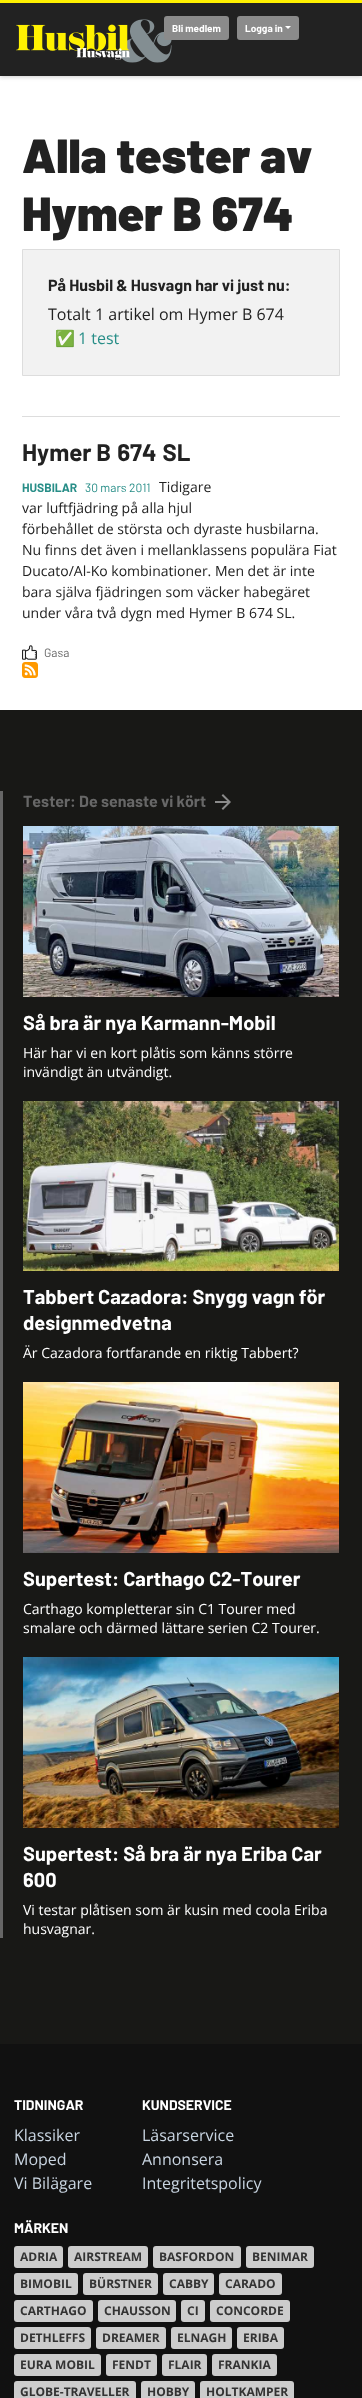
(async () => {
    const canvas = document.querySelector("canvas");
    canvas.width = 362;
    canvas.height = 2398;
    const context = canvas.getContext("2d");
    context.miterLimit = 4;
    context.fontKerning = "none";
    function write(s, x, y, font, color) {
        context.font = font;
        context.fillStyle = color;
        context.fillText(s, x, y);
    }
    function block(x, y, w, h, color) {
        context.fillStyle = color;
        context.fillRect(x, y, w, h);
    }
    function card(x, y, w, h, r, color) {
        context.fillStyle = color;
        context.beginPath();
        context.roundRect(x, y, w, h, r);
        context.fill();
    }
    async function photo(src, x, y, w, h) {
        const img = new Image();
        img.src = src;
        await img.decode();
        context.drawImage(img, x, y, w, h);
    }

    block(0, 0, 362, 2398, "rgb(255, 255, 255)");
    context.fillStyle = "rgba(157, 157, 157, 0.5)";
    context.filter = "blur(2px)";
    context.beginPath();
    context.rect(0, 1, 362, 76);
    context.fill();
    context.filter = "none";
    block(0, 3, 362, 73, "rgb(34, 34, 34)");
    block(0, 0, 362, 3, "rgb(255, 241, 1)");
    await photo("media/1.png", 16, 19, 156, 44);
    card(164, 16, 65, 24, 3, "rgb(139, 139, 139)");
    write("Bli medlem", 172, 32, "bold 10px Barlow", "rgb(255, 255, 255)");
    card(237, 16, 62, 24, 3, "rgb(139, 139, 139)");
    write("Logga in", 245, 32, "bold 10px Barlow", "rgb(255, 255, 255)");
    context.beginPath();
    context.moveTo(285, 26);
    context.lineTo(291, 26);
    context.lineTo(288, 29);
    context.closePath();
    context.fill();
    write("Alla tester av", 22, 173, "900 48px Barlow", "rgb(34, 34, 34)");
    write("Hymer B 674", 22, 231, "900 48px Barlow", "rgb(34, 34, 34)");
    context.fillStyle = "rgb(242, 242, 242)";
    context.beginPath();
    context.rect(22.5, 249.5, 317, 126);
    context.fill();
    context.strokeStyle = "rgb(221, 221, 221)";
    context.stroke();
    write("På Husbil & Husvagn har vi just nu:", 48, 291, "bold 16px Barlow", "rgb(34, 34, 34)");
    write("Totalt 1 artikel om Hymer B 674", 48, 320, "16px Open Sans", "rgb(34, 34, 34)");
    write("✅", 55, 344, "16px Noto Color Emoji", "rgb(34, 34, 34)");
    write("1 test", 78, 344, "16px Open Sans", "rgb(40, 142, 136)");
    block(22, 416, 318, 1, "rgb(221, 221, 221)");
    write("Hymer B 674 SL", 22, 461, "bold 24px Barlow", "rgb(34, 34, 34)");
    write("HUSBILAR", 22, 492, "bold 12px Barlow", "rgb(40, 142, 136)");
    write("30 mars 2011", 85, 492, "12px Barlow", "rgb(40, 142, 136)");
    write("Tidigare", 159, 492, "14px Open Sans", "rgb(34, 34, 34)");
    write("var luftfjädring på alla hjul", 22, 513, "14px Open Sans", "rgb(34, 34, 34)");
    write("förbehållet de största och dyraste husbilarna.", 22, 534, "14px Open Sans", "rgb(34, 34, 34)");
    write("Nu finns det även i mellanklassens populära Fiat", 22, 555, "14px Open Sans", "rgb(34, 34, 34)");
    write("Ducato/Al-Ko kombinationer. Men det är inte", 22, 576, "14px Open Sans", "rgb(34, 34, 34)");
    write("bara själva fjädringen som väcker habegäret", 22, 597, "14px Open Sans", "rgb(34, 34, 34)");
    write("under våra två dygn med Hymer B 674 SL.", 22, 618, "14px Open Sans", "rgb(34, 34, 34)");
    await photo("media/2.png", 22, 645, 15, 15);
    write("Gasa", 44, 657, "12px Barlow", "rgb(103, 103, 103)");
    await photo("media/3.png", 22, 662, 16, 16);
    block(0, 710, 362, 1334, "rgb(24, 24, 22)");
    block(0, 791, 3, 1147, "rgb(102, 102, 102)");
    write("Tester: De senaste vi kört", 23, 807, "bold 16px Barlow", "rgb(103, 103, 103)");
    await photo("media/4.png", 215, 794, 16, 16);
    await photo("media/5.png", 23, 826, 316, 171);
    write("Så bra är nya Karmann-Mobil", 23, 1030, "bold 20px Barlow", "rgb(255, 255, 255)");
    write("Här har vi en kort plåtis som känns större", 23, 1058, "14px Open Sans", "rgb(255, 255, 255)");
    write("invändigt än utvändigt.", 23, 1077, "14px Open Sans", "rgb(255, 255, 255)");
    await photo("media/6.png", 23, 1101, 316, 170);
    write("Tabbert Cazadora: Snygg vagn för", 23, 1304, "bold 20px Barlow", "rgb(255, 255, 255)");
    write("designmedvetna", 23, 1330, "bold 20px Barlow", "rgb(255, 255, 255)");
    write("Är Cazadora fortfarande en riktig Tabbert?", 23, 1358, "14px Open Sans", "rgb(255, 255, 255)");
    await photo("media/7.png", 23, 1382, 316, 171);
    write("Supertest: Carthago C2-Tourer", 23, 1586, "bold 20px Barlow", "rgb(255, 255, 255)");
    write("Carthago kompletterar sin C1 Tourer med", 23, 1614, "14px Open Sans", "rgb(255, 255, 255)");
    write("smalare och därmed lättare serien C2 Tourer.", 23, 1633, "14px Open Sans", "rgb(255, 255, 255)");
    await photo("media/8.png", 23, 1657, 316, 171);
    write("Supertest: Så bra är nya Eriba Car", 23, 1861, "bold 20px Barlow", "rgb(255, 255, 255)");
    write("600", 23, 1887, "bold 20px Barlow", "rgb(255, 255, 255)");
    write("Vi testar plåtisen som är kusin med coola Eriba", 23, 1915, "14px Open Sans", "rgb(255, 255, 255)");
    write("husvagnar.", 23, 1934, "14px Open Sans", "rgb(255, 255, 255)");
    block(0, 2044, 362, 354, "rgb(17, 17, 17)");
    write("TIDNINGAR", 14, 2110, "bold 14px Barlow", "rgb(255, 255, 255)");
    write("Klassiker", 14, 2141, "16px Open Sans", "rgb(200, 212, 224)");
    write("Moped", 14, 2165, "16px Open Sans", "rgb(200, 212, 224)");
    write("Vi Bilägare", 14, 2189, "16px Open Sans", "rgb(200, 212, 224)");
    write("KUNDSERVICE", 142, 2110, "bold 14px Barlow", "rgb(255, 255, 255)");
    write("Läsarservice", 142, 2141, "16px Open Sans", "rgb(200, 212, 224)");
    write("Annonsera", 142, 2165, "16px Open Sans", "rgb(200, 212, 224)");
    write("Integritetspolicy", 142, 2189, "16px Open Sans", "rgb(200, 212, 224)");
    write("MÄRKEN", 14, 2233, "bold 14px Barlow", "rgb(255, 255, 255)");
    card(14, 2246, 49, 22, 3, "rgb(204, 204, 204)");
    write("ADRIA", 20, 2261, "bold 12px Open Sans", "rgb(51, 51, 51)");
    card(68, 2246, 80, 22, 3, "rgb(204, 204, 204)");
    write("AIRSTREAM", 74, 2261, "bold 12px Open Sans", "rgb(51, 51, 51)");
    card(153, 2246, 88, 22, 3, "rgb(204, 204, 204)");
    write("BASFORDON", 159, 2261, "bold 12px Open Sans", "rgb(51, 51, 51)");
    card(246, 2246, 68, 22, 3, "rgb(204, 204, 204)");
    write("BENIMAR", 252, 2261, "bold 12px Open Sans", "rgb(51, 51, 51)");
    card(14, 2273, 64, 22, 3, "rgb(204, 204, 204)");
    write("BIMOBIL", 20, 2288, "bold 12px Open Sans", "rgb(51, 51, 51)");
    card(83, 2273, 75, 22, 3, "rgb(204, 204, 204)");
    write("BÜRSTNER", 89, 2288, "bold 12px Open Sans", "rgb(51, 51, 51)");
    card(163, 2273, 51, 22, 3, "rgb(204, 204, 204)");
    write("CABBY", 169, 2288, "bold 12px Open Sans", "rgb(51, 51, 51)");
    card(219, 2273, 63, 22, 3, "rgb(204, 204, 204)");
    write("CARADO", 225, 2288, "bold 12px Open Sans", "rgb(51, 51, 51)");
    card(14, 2300, 79, 22, 3, "rgb(204, 204, 204)");
    write("CARTHAGO", 20, 2315, "bold 12px Open Sans", "rgb(51, 51, 51)");
    card(98, 2300, 78, 22, 3, "rgb(204, 204, 204)");
    write("CHAUSSON", 104, 2315, "bold 12px Open Sans", "rgb(51, 51, 51)");
    card(181, 2300, 24, 22, 3, "rgb(204, 204, 204)");
    write("CI", 187, 2315, "bold 12px Open Sans", "rgb(51, 51, 51)");
    card(210, 2300, 80, 22, 3, "rgb(204, 204, 204)");
    write("CONCORDE", 216, 2315, "bold 12px Open Sans", "rgb(51, 51, 51)");
    card(14, 2327, 77, 22, 3, "rgb(204, 204, 204)");
    write("DETHLEFFS", 20, 2342, "bold 12px Open Sans", "rgb(51, 51, 51)");
    card(96, 2327, 70, 22, 3, "rgb(204, 204, 204)");
    write("DREAMER", 102, 2342, "bold 12px Open Sans", "rgb(51, 51, 51)");
    card(171, 2327, 61, 22, 3, "rgb(204, 204, 204)");
    write("ELNAGH", 177, 2342, "bold 12px Open Sans", "rgb(51, 51, 51)");
    card(237, 2327, 47, 22, 3, "rgb(204, 204, 204)");
    write("ERIBA", 243, 2342, "bold 12px Open Sans", "rgb(51, 51, 51)");
    card(14, 2354, 87, 22, 3, "rgb(204, 204, 204)");
    write("EURA MOBIL", 20, 2369, "bold 12px Open Sans", "rgb(51, 51, 51)");
    card(106, 2354, 51, 22, 3, "rgb(204, 204, 204)");
    write("FENDT", 112, 2369, "bold 12px Open Sans", "rgb(51, 51, 51)");
    card(162, 2354, 45, 22, 3, "rgb(204, 204, 204)");
    write("FLAIR", 168, 2369, "bold 12px Open Sans", "rgb(51, 51, 51)");
    card(212, 2354, 65, 22, 3, "rgb(204, 204, 204)");
    write("FRANKIA", 218, 2369, "bold 12px Open Sans", "rgb(51, 51, 51)");
    card(14, 2381, 122, 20, 3, "rgb(204, 204, 204)");
    write("GLOBE-TRAVELLER", 20, 2396, "bold 12px Open Sans", "rgb(51, 51, 51)");
    card(141, 2381, 54, 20, 3, "rgb(204, 204, 204)");
    write("HOBBY", 147, 2396, "bold 12px Open Sans", "rgb(51, 51, 51)");
    card(200, 2381, 94, 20, 3, "rgb(204, 204, 204)");
    write("HOLTKAMPER", 206, 2396, "bold 12px Open Sans", "rgb(51, 51, 51)");
})();
